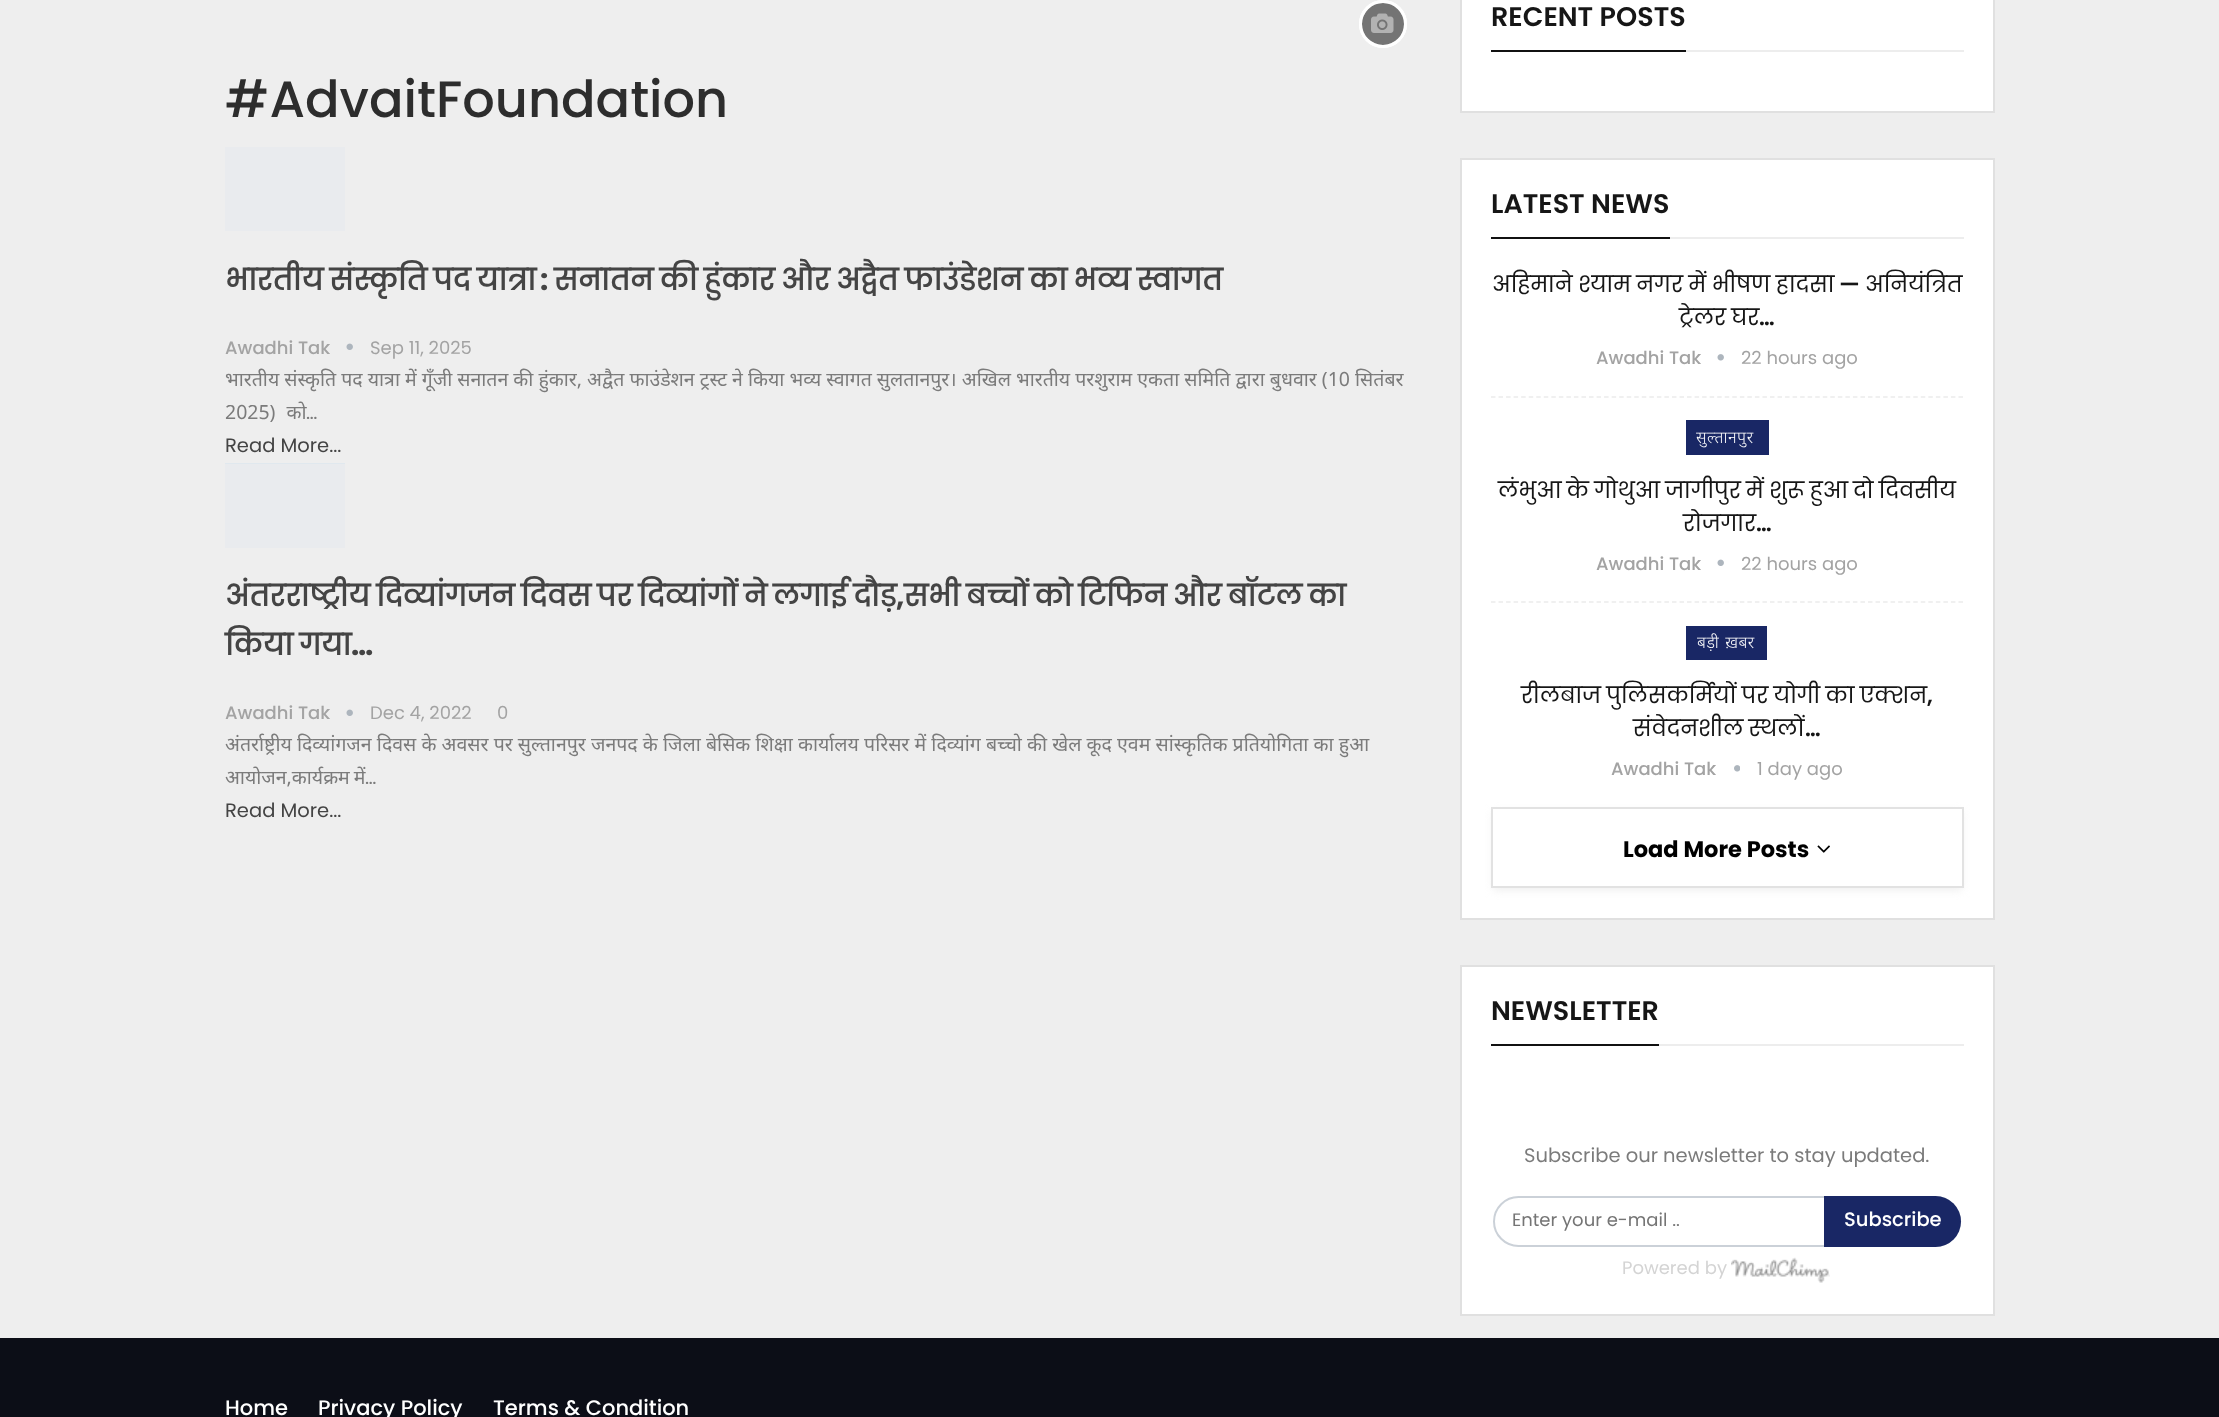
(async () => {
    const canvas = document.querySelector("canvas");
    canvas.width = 2219;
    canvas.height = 1417;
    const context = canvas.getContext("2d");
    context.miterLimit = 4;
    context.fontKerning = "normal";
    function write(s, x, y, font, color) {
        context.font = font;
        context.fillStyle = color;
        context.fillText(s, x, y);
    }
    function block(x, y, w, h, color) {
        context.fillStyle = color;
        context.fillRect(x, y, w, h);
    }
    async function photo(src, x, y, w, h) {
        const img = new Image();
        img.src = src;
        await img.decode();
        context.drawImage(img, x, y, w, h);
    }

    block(0, 0, 2219, 1417, "rgb(238, 238, 238)");
    write("#AdvaitFoundation", 225, 117, "500 51px Poppins", "rgb(45, 45, 45)");
    context.fillStyle = "rgb(167, 167, 167)";
    context.beginPath();
    context.arc(1383, 24, 22.5, 0, Math.PI * 2);
    context.fill();
    context.strokeStyle = "rgb(255, 255, 255)";
    context.lineWidth = 3;
    context.stroke();
    await photo("media/1.png", 1371, 13, 23, 20);
    block(225, 147, 120, 84, "rgb(233, 235, 238)");
    context.wordSpacing = "-1.25px";
    write("भारतीय संस्कृति पद यात्रा", 225, 290, "bold 29.25px Poppins", "rgb(68, 68, 68)");
    context.wordSpacing = "0px";
    write(":", 540, 290, "bold 29.25px 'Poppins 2'", "rgb(68, 68, 68)");
    context.wordSpacing = "-1.25px";
    write("सनातन की हुंकार और अद्वैत फाउंडेशन का भव्य स्वागत", 554, 290, "bold 29.25px Poppins", "rgb(68, 68, 68)");
    context.wordSpacing = "0px";
    write("Awadhi Tak", 225, 354, "500 18px Poppins", "rgb(163, 163, 163)");
    await photo("media/2.png", 346, 343, 7, 7);
    write("Sep 11, 2025", 370, 354, "18px Poppins", "rgb(163, 163, 163)");
    write("भारतीय संस्कृति पद यात्रा में गूँजी सनातन की हुंकार, अद्वैत फाउंडेशन ट्रस्ट ने किया भव्य स्वागत सुलतानपुर। अखिल भारतीय परशुराम एकता समिति द्वारा बुधवार (10 सितंबर", 225, 386, "19.5px Noto Sans", "rgb(123, 123, 123)");
    context.wordSpacing = "6px";
    write("2025) को", 225, 419, "19.5px Noto Sans", "rgb(123, 123, 123)");
    context.wordSpacing = "0px";
    write("…", 306, 419, "19.5px Poppins", "rgb(123, 123, 123)");
    write("Read More...", 225, 452, "19.5px Poppins", "rgb(68, 68, 68)");
    context.fillStyle = "rgba(0, 0, 0, 0.3)";
    context.beginPath();
    context.arc(1383, 24, 22.5, 0, Math.PI * 2);
    context.fill();
    context.stroke();
    block(225, 463, 120, 1, "rgb(224, 232, 238)");
    block(225, 464, 120, 84, "rgb(233, 235, 238)");
    context.wordSpacing = "-1.5px";
    write("अंतरराष्ट्रीय दिव्यांगजन दिवस पर दिव्यांगों ने लगाई दौड़", 225, 606, "bold 29.25px Poppins", "rgb(68, 68, 68)");
    context.wordSpacing = "0px";
    write(",", 896, 606, "bold 29.25px 'Poppins 2'", "rgb(68, 68, 68)");
    context.wordSpacing = "-1.5px";
    write("सभी बच्चों को टिफिन और बॉटल का", 904, 606, "bold 29.25px Poppins", "rgb(68, 68, 68)");
    write("किया गया", 225, 655, "bold 29.25px Poppins", "rgb(68, 68, 68)");
    context.wordSpacing = "0px";
    write("…", 351, 655, "bold 29.25px 'Poppins 2'", "rgb(68, 68, 68)");
    write("Awadhi Tak", 225, 719, "500 18px Poppins", "rgb(163, 163, 163)");
    await photo("media/2.png", 346, 709, 7, 7);
    write("Dec 4, 2022", 370, 719, "18px Poppins", "rgb(163, 163, 163)");
    write("0", 497, 719, "18px Poppins", "rgb(163, 163, 163)");
    context.wordSpacing = "0.1px";
    write("अंतर्राष्ट्रीय दिव्यांगजन दिवस के अवसर पर सुल्तानपुर जनपद के जिला बेसिक शिक्षा कार्यालय परिसर में दिव्यांग बच्चो की खेल कूद एवम सांस्कृतिक प्रतियोगिता का हुआ", 225, 751, "19.5px Noto Sans", "rgb(123, 123, 123)");
    context.wordSpacing = "-1px";
    write("आयोजन,कार्यक्रम में", 225, 784, "19.5px Noto Sans", "rgb(123, 123, 123)");
    context.wordSpacing = "0px";
    write("…", 365, 784, "19.5px Poppins", "rgb(123, 123, 123)");
    write("Read More...", 225, 817, "19.5px Poppins", "rgb(68, 68, 68)");
    context.fillStyle = "rgb(255, 255, 255)";
    context.beginPath();
    context.rect(1461, -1, 533, 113);
    context.fill();
    context.strokeStyle = "rgb(224, 224, 224)";
    context.lineWidth = 2;
    context.stroke();
    write("RECENT POSTS", 1491, 26, "600 27px Poppins", "rgb(22, 22, 22)");
    block(1491, 50, 195, 2, "rgb(17, 17, 17)");
    block(1686, 50, 278, 2, "rgb(237, 237, 237)");
    context.fillStyle = "rgb(255, 255, 255)";
    context.beginPath();
    context.rect(1461, 159, 533, 760);
    context.fill();
    context.stroke();
    write("LATEST NEWS", 1491, 213, "600 27px Poppins", "rgb(22, 22, 22)");
    block(1491, 237, 179, 2, "rgb(17, 17, 17)");
    block(1670, 237, 294, 2, "rgb(237, 237, 237)");
    context.beginPath();
    context.moveTo(1491, 397);
    context.lineTo(1963.5, 397);
    context.strokeStyle = "rgb(235, 235, 235)";
    context.lineWidth = 1.5;
    context.setLineDash([4.5, 3.04]);
    context.stroke();
    context.wordSpacing = "-0.5px";
    write("अहिमाने श्याम नगर में भीषण हादसा", 1492, 292, "22.5px 'Poppins 2'", "rgb(22, 22, 22)");
    context.wordSpacing = "0px";
    write("—", 1839, 292, "600 22.5px Poppins", "rgb(22, 22, 22)");
    write("अनियंत्रित", 1865, 292, "22.5px 'Poppins 2'", "rgb(22, 22, 22)");
    context.wordSpacing = "-0.75px";
    write("ट्रेलर घर", 1679, 325, "22.5px 'Poppins 2'", "rgb(22, 22, 22)");
    context.wordSpacing = "0px";
    write("…", 1759, 325, "600 22.5px Poppins", "rgb(22, 22, 22)");
    write("Awadhi Tak", 1596, 364, "500 18px Poppins", "rgb(163, 163, 163)");
    await photo("media/3.png", 1717, 354, 7, 7);
    write("22 hours ago", 1741, 364, "18px Poppins", "rgb(163, 163, 163)");
    context.beginPath();
    context.moveTo(1491, 602);
    context.lineTo(1963.5, 602);
    context.stroke();
    block(1686, 420, 83, 35, "rgb(25, 39, 101)");
    context.letterSpacing = "0.5px";
    write("सुल्तानपुर", 1696, 443, "300 16.5px Noto Sans", "rgb(255, 255, 255)");
    context.letterSpacing = "0px";
    context.wordSpacing = "-0.75px";
    write("लंभुआ के गोथुआ जागीपुर में शुरू हुआ दो दिवसीय", 1498, 498, "22.5px 'Poppins 2'", "rgb(22, 22, 22)");
    context.wordSpacing = "0px";
    write("रोजगार", 1683, 531, "22.5px 'Poppins 2'", "rgb(22, 22, 22)");
    write("…", 1756, 531, "600 22.5px Poppins", "rgb(22, 22, 22)");
    write("Awadhi Tak", 1596, 570, "500 18px Poppins", "rgb(163, 163, 163)");
    await photo("media/4.png", 1717, 559, 7, 7);
    write("22 hours ago", 1741, 570, "18px Poppins", "rgb(163, 163, 163)");
    block(1686, 626, 81, 34, "rgb(25, 39, 101)");
    context.letterSpacing = "0.5px";
    context.wordSpacing = "1px";
    write("बड़ी ख़बर", 1697, 648, "300 16.5px Noto Sans", "rgb(255, 255, 255)");
    context.letterSpacing = "0px";
    context.wordSpacing = "-0.75px";
    write("रीलबाज पुलिसकर्मियों पर योगी का एक्शन", 1521, 703, "22.5px 'Poppins 2'", "rgb(22, 22, 22)");
    context.wordSpacing = "0px";
    write(",", 1927, 703, "600 22.5px Poppins", "rgb(22, 22, 22)");
    context.wordSpacing = "-0.75px";
    write("संवेदनशील स्थलों", 1633, 736, "22.5px 'Poppins 2'", "rgb(22, 22, 22)");
    context.wordSpacing = "0px";
    write("…", 1805, 736, "600 22.5px Poppins", "rgb(22, 22, 22)");
    write("Awadhi Tak", 1611, 775, "500 18px Poppins", "rgb(163, 163, 163)");
    await photo("media/5.png", 1734, 765, 6, 7);
    write("1 day ago", 1757, 775, "18px Poppins", "rgb(163, 163, 163)");
    context.save();
    context.beginPath();
    context.moveTo(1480, 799);
    context.lineTo(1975, 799);
    context.lineTo(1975, 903);
    context.lineTo(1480, 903);
    context.closePath();
    context.moveTo(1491, 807);
    context.lineTo(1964, 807);
    context.lineTo(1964, 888);
    context.lineTo(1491, 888);
    context.closePath();
    context.clip("evenodd");
    context.fillStyle = "rgb(238, 238, 238)";
    context.filter = "blur(4px)";
    context.beginPath();
    context.rect(1493, 812, 469, 78);
    context.fill();
    context.filter = "none";
    context.restore();
    context.strokeStyle = "rgb(226, 226, 226)";
    context.lineWidth = 2;
    context.setLineDash([]);
    context.strokeRect(1492, 808, 471, 79);
    write("Load More Posts", 1623, 857, "bold 22.5px 'Poppins 2'", "rgb(0, 0, 0)");
    await photo("media/6.png", 1817, 845, 13, 8);
    context.fillStyle = "rgb(255, 255, 255)";
    context.beginPath();
    context.rect(1461, 966, 533, 349);
    context.fill();
    context.strokeStyle = "rgb(224, 224, 224)";
    context.stroke();
    write("NEWSLETTER", 1491, 1020, "600 27px Poppins", "rgb(22, 22, 22)");
    block(1491, 1044, 168, 2, "rgb(17, 17, 17)");
    block(1659, 1044, 305, 2, "rgb(237, 237, 237)");
    write("Subscribe our newsletter to stay updated.", 1524, 1162, "19.5px Poppins", "rgb(123, 123, 123)");
    context.beginPath();
    context.roundRect(1494, 1197, 466, 49, 24.5);
    context.strokeStyle = "rgb(203, 209, 216)";
    context.stroke();
    write("Enter your e-mail ..", 1512, 1226, "18px Poppins", "rgb(117, 117, 117)");
    context.fillStyle = "rgb(25, 39, 101)";
    context.beginPath();
    context.roundRect(1824, 1196, 137, 51, [0, 25.5, 25.5, 0]);
    context.fill();
    write("Subscribe", 1844, 1226, "500 19.5px Poppins", "rgb(255, 255, 255)");
    write("Powered by", 1622, 1274, "18px Poppins", "rgb(212, 212, 212)");
    await photo("media/7.png", 1731, 1257, 99, 26);
    block(0, 1338, 2219, 79, "rgb(12, 14, 23)");
    write("Home", 225, 1415, "500 21px Poppins", "rgb(255, 255, 255)");
    write("Privacy Policy", 318, 1415, "500 21px Poppins", "rgb(255, 255, 255)");
    write("Terms & Condition", 493, 1415, "500 21px Poppins", "rgb(255, 255, 255)");
})();
